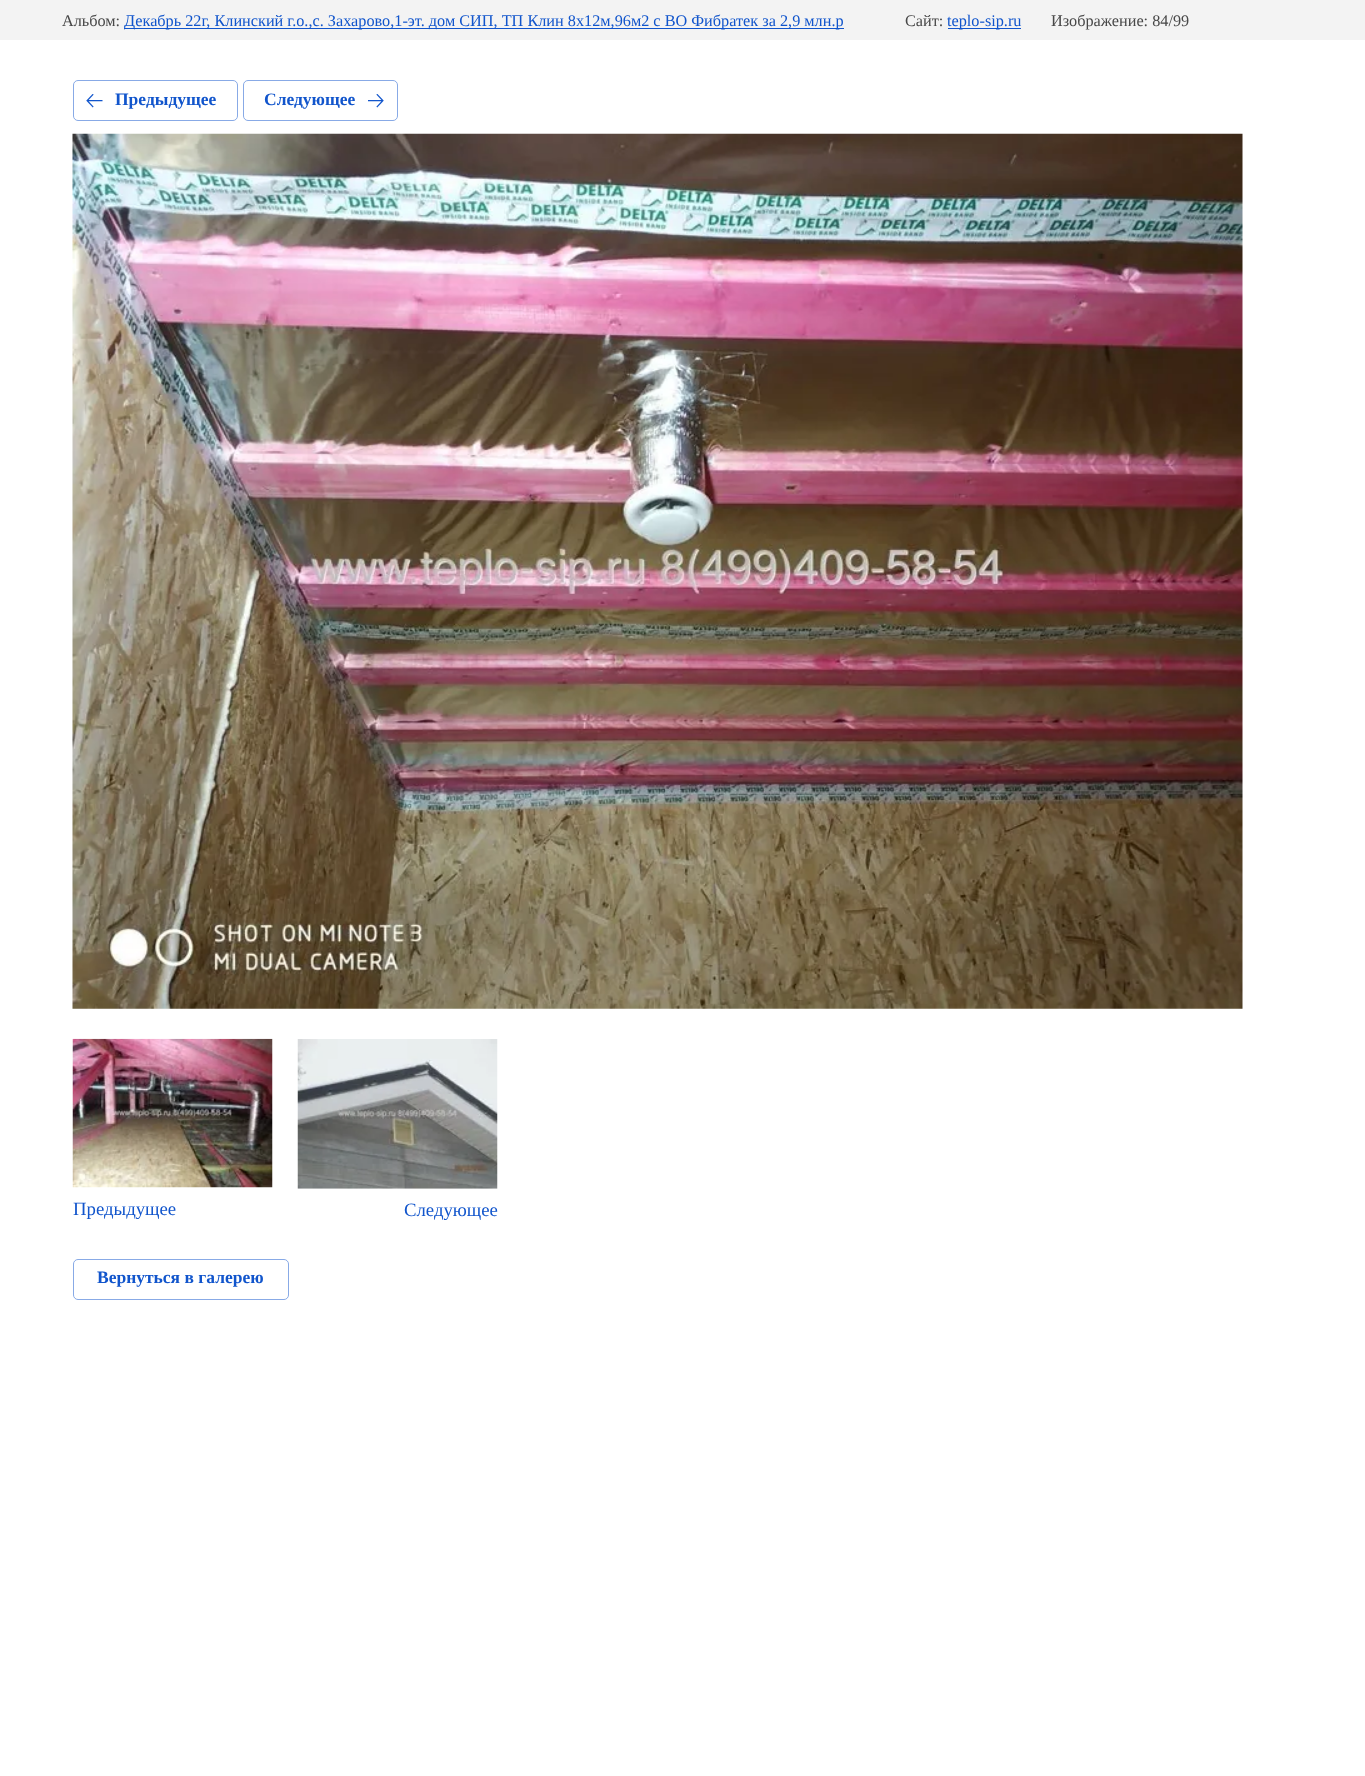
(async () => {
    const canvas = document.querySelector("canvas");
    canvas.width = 1365;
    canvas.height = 1776;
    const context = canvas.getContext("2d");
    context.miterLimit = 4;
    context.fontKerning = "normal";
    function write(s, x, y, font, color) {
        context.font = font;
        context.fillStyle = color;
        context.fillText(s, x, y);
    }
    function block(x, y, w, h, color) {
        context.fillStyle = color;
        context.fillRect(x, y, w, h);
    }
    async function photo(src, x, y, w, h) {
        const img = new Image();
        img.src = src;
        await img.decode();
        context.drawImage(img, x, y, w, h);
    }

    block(0, 0, 1365, 1776, "rgb(255, 255, 255)");
    block(0, 0, 1365, 40, "rgb(243, 243, 243)");
    write("Альбом:", 62, 26, "16.25px Liberation Serif", "rgb(72, 72, 72)");
    block(124, 28, 720, 1, "rgb(17, 85, 204)");
    write("Декабрь 22г, Клинский г.о.,с. Захарово,1-эт. дом СИП, ТП Клин 8х12м,96м2 с ВО Фибратек за 2,9 млн.р", 124, 26, "16.25px Liberation Serif", "rgb(17, 85, 204)");
    write("Сайт:", 905, 26, "16.25px Liberation Serif", "rgb(72, 72, 72)");
    block(948, 28, 73, 1, "rgb(17, 85, 204)");
    write("teplo-sip.ru", 947, 26, "16.25px Liberation Serif", "rgb(17, 85, 204)");
    write("Изображение: 84/99", 1051, 26, "16.25px Liberation Serif", "rgb(72, 72, 72)");
    context.beginPath();
    context.roundRect(73.5, 80.5, 164, 40, 4.5);
    context.strokeStyle = "rgb(136, 170, 230)";
    context.stroke();
    await photo("media/1.png", 86, 94, 17, 14);
    write("Предыдущее", 115, 105, "bold 17.5px Liberation Serif", "rgb(17, 85, 204)");
    context.beginPath();
    context.roundRect(243.5, 80.5, 154, 40, 4.5);
    context.stroke();
    write("Следующее", 264, 105, "bold 17.5px Liberation Serif", "rgb(17, 85, 204)");
    await photo("media/2.png", 368, 94, 16, 14);
    await photo("media/3.png", 72, 133, 1171, 876);
    await photo("media/4.png", 72, 1038, 201, 150);
    write("Предыдущее", 73, 1215, "18.75px Liberation Serif", "rgb(17, 85, 204)");
    await photo("media/5.png", 297, 1039, 201, 150);
    write("Следующее", 404, 1216, "18.75px Liberation Serif", "rgb(17, 85, 204)");
    context.beginPath();
    context.roundRect(73.5, 1259.5, 215, 40, 4.5);
    context.stroke();
    write("Вернуться в галерею", 97, 1283, "bold 17.5px Liberation Serif", "rgb(17, 85, 204)");
})();
